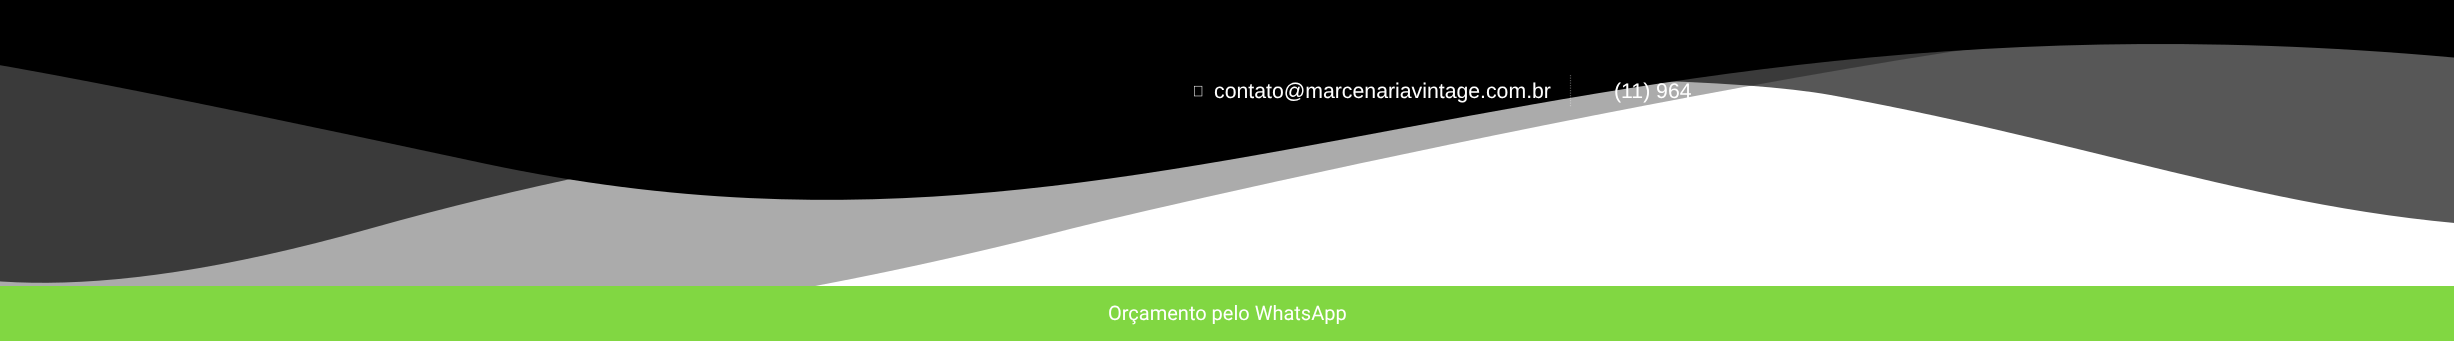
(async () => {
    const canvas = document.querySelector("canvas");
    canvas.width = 2454;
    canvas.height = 341;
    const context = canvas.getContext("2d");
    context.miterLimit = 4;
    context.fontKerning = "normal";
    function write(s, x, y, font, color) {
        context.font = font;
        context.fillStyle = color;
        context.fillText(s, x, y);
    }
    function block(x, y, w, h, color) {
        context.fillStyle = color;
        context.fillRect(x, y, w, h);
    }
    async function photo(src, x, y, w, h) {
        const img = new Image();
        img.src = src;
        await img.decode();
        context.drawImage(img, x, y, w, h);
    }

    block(0, 0, 2454, 341, "rgb(255, 255, 255)");
    await photo("media/1.png", 0, 0, 2454, 286);
    await photo("media/2.png", 1194, 85, 9, 12);
    write("contato@marcenariavintage.com.br", 1214, 98, "21.25px Liberation Sans", "rgb(255, 255, 255)");
    context.beginPath();
    context.moveTo(1570.5, 75);
    context.lineTo(1570.5, 107.5);
    context.strokeStyle = "rgba(255, 255, 255, 0.32)";
    context.lineWidth = 1.2;
    context.setLineDash([1.25, 1.25]);
    context.stroke();
    write("(11) 964", 1614, 98, "21.25px Liberation Sans", "rgb(255, 255, 255)");
    block(0, 286, 2454, 55, "rgb(129, 215, 66)");
    write("Orçamento pelo WhatsApp", 1108, 320, "20px Roboto", "rgb(255, 255, 255)");
})();
